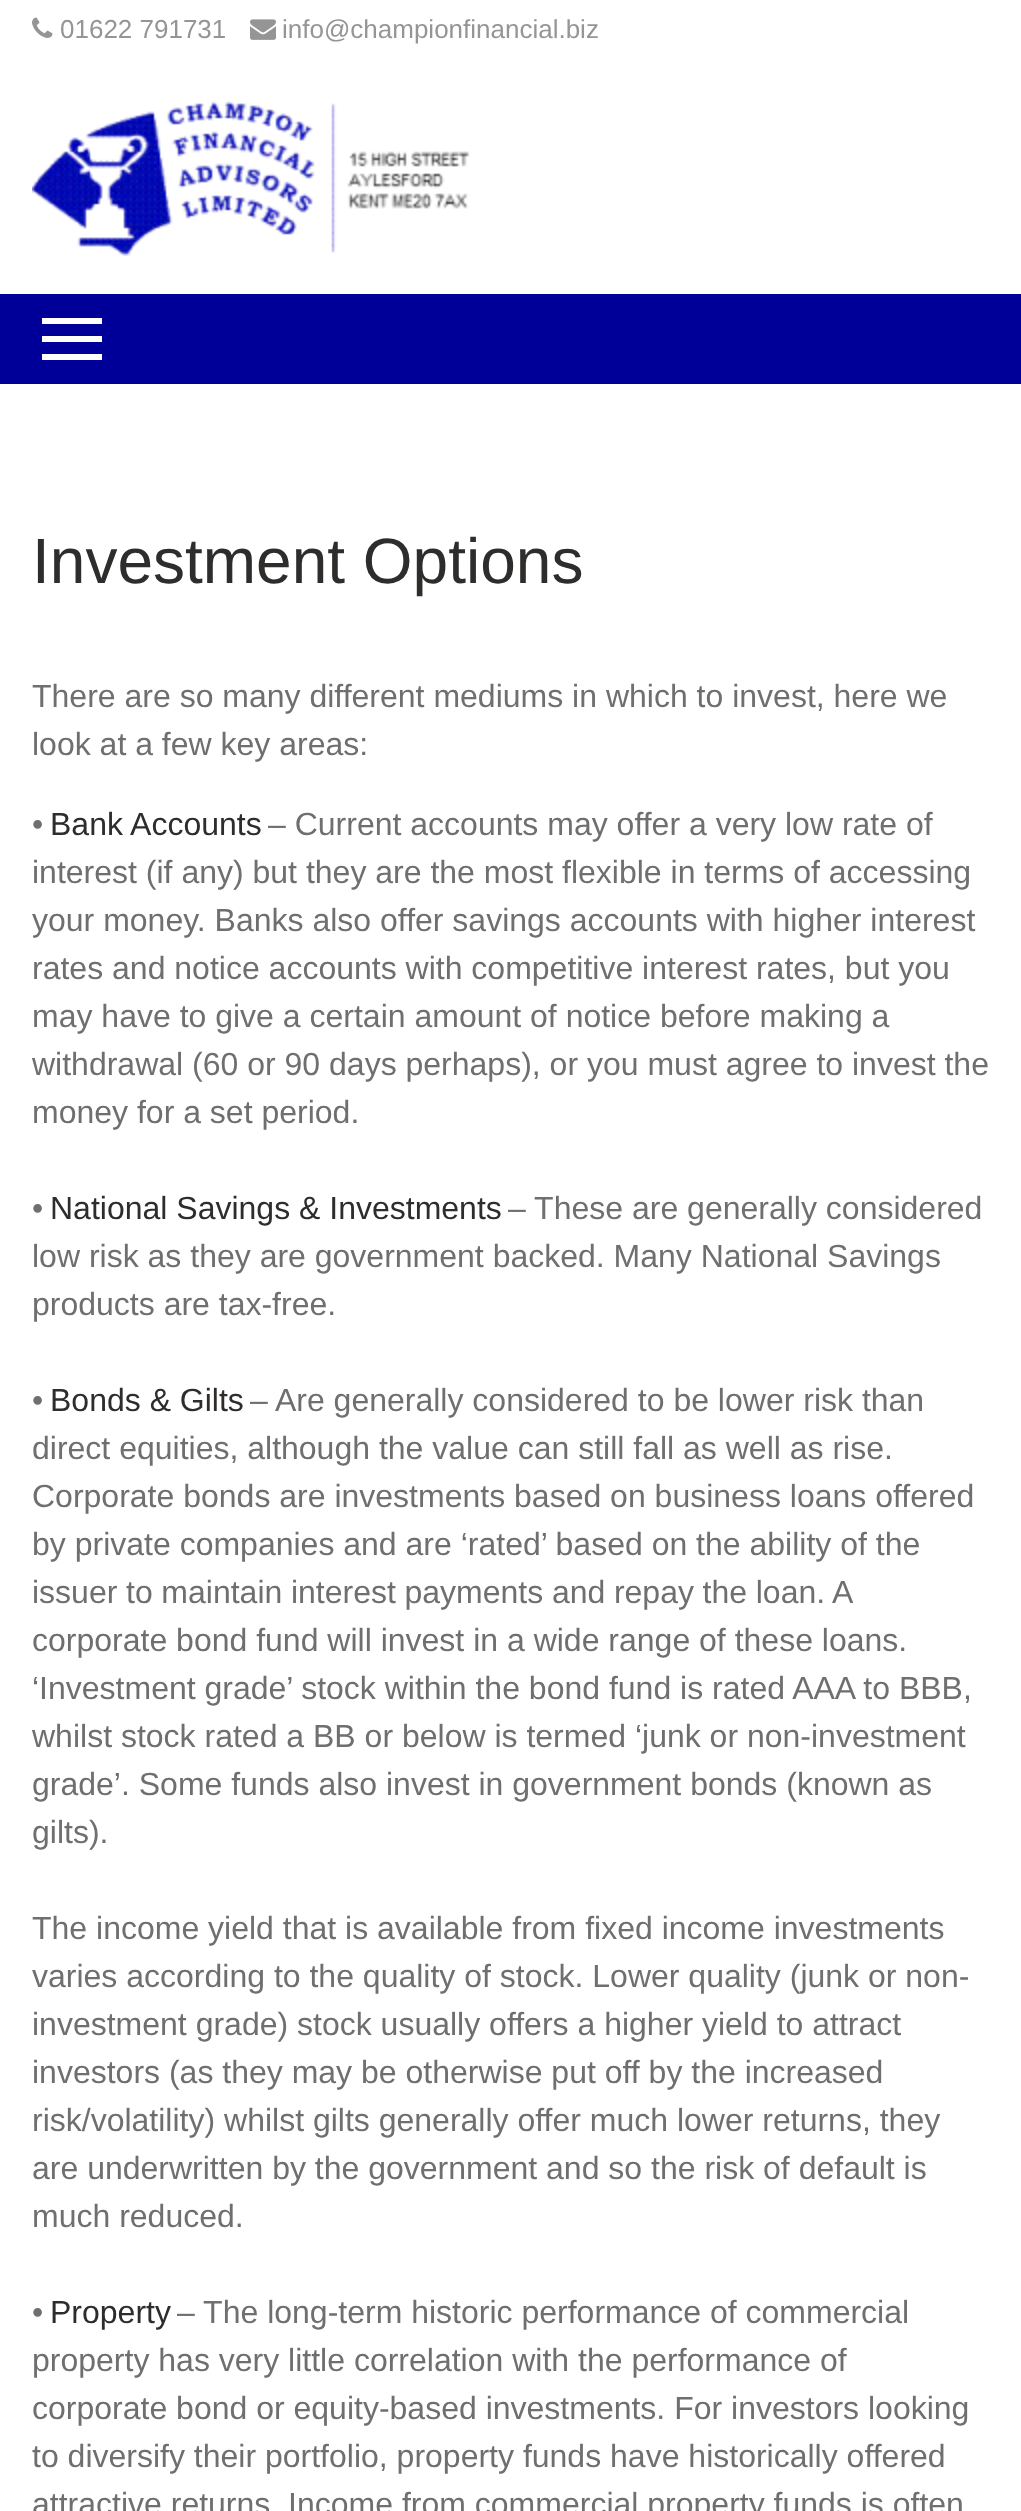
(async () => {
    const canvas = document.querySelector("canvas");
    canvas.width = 1021;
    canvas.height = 2511;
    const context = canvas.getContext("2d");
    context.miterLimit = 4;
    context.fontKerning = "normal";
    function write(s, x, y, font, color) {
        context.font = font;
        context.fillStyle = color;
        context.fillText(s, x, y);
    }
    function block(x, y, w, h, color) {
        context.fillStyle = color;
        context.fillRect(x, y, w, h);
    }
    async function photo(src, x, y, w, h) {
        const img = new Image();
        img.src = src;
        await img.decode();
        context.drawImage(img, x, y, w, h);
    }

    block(0, 0, 1021, 2511, "rgb(255, 255, 255)");
    await photo("media/1.png", 32, 17, 21, 21);
    write("01622 791731", 60, 38, "26px Liberation Sans", "rgb(150, 149, 149)");
    await photo("media/2.png", 250, 19, 26, 21);
    write("info@championfinancial.biz", 282, 38, "26px Liberation Sans", "rgb(150, 149, 149)");
    await photo("media/3.png", 32, 101, 438, 155);
    block(0, 294, 1021, 90, "rgb(0, 0, 153)");
    block(42, 318, 60, 6, "rgb(255, 255, 255)");
    block(42, 336, 60, 6, "rgb(255, 255, 255)");
    block(42, 354, 60, 6, "rgb(255, 255, 255)");
    write("Investment Options", 32, 583, "64px Liberation Sans", "rgb(46, 45, 44)");
    write("There are so many different mediums in which to invest, here we", 32, 707, "32px Liberation Sans", "rgb(112, 111, 111)");
    write("look at a few key areas:", 32, 755, "32px Liberation Sans", "rgb(112, 111, 111)");
    write("•", 32, 835, "32px Liberation Sans", "rgb(112, 111, 111)");
    write("Bank Accounts", 50, 835, "32px Liberation Sans", "rgb(46, 45, 44)");
    write("– Current accounts may offer a very low rate of", 268, 835, "32px Liberation Sans", "rgb(112, 111, 111)");
    write("interest (if any) but they are the most flexible in terms of accessing", 32, 883, "32px Liberation Sans", "rgb(112, 111, 111)");
    write("your money. Banks also offer savings accounts with higher interest", 32, 931, "32px Liberation Sans", "rgb(112, 111, 111)");
    write("rates and notice accounts with competitive interest rates, but you", 32, 979, "32px Liberation Sans", "rgb(112, 111, 111)");
    write("may have to give a certain amount of notice before making a", 32, 1027, "32px Liberation Sans", "rgb(112, 111, 111)");
    write("withdrawal (60 or 90 days perhaps), or you must agree to invest the", 32, 1075, "32px Liberation Sans", "rgb(112, 111, 111)");
    write("money for a set period.", 32, 1123, "32px Liberation Sans", "rgb(112, 111, 111)");
    write("•", 32, 1219, "32px Liberation Sans", "rgb(112, 111, 111)");
    write("National Savings & Investments", 50, 1219, "32px Liberation Sans", "rgb(46, 45, 44)");
    write("– These are generally considered", 508, 1219, "32px Liberation Sans", "rgb(112, 111, 111)");
    write("low risk as they are government backed. Many National Savings", 32, 1267, "32px Liberation Sans", "rgb(112, 111, 111)");
    write("products are tax-free.", 32, 1315, "32px Liberation Sans", "rgb(112, 111, 111)");
    write("•", 32, 1411, "32px Liberation Sans", "rgb(112, 111, 111)");
    write("Bonds & Gilts", 50, 1411, "32px Liberation Sans", "rgb(46, 45, 44)");
    write("– Are generally considered to be lower risk than", 250, 1411, "32px Liberation Sans", "rgb(112, 111, 111)");
    write("direct equities, although the value can still fall as well as rise.", 32, 1459, "32px Liberation Sans", "rgb(112, 111, 111)");
    write("Corporate bonds are investments based on business loans offered", 32, 1507, "32px Liberation Sans", "rgb(112, 111, 111)");
    write("by private companies and are ‘rated’ based on the ability of the", 32, 1555, "32px Liberation Sans", "rgb(112, 111, 111)");
    context.wordSpacing = "-0.25px";
    write("issuer to maintain interest payments and repay the loan. A", 32, 1603, "32px Liberation Sans", "rgb(112, 111, 111)");
    context.wordSpacing = "0px";
    write("corporate bond fund will invest in a wide range of these loans.", 32, 1651, "32px Liberation Sans", "rgb(112, 111, 111)");
    write("‘Investment grade’ stock within the bond fund is rated AAA to BBB,", 32, 1699, "32px Liberation Sans", "rgb(112, 111, 111)");
    write("whilst stock rated a BB or below is termed ‘junk or non-investment", 32, 1747, "32px Liberation Sans", "rgb(112, 111, 111)");
    write("grade’. Some funds also invest in government bonds (known as", 32, 1795, "32px Liberation Sans", "rgb(112, 111, 111)");
    write("gilts).", 32, 1843, "32px Liberation Sans", "rgb(112, 111, 111)");
    write("The income yield that is available from fixed income investments", 32, 1939, "32px Liberation Sans", "rgb(112, 111, 111)");
    write("varies according to the quality of stock. Lower quality (junk or non-", 32, 1987, "32px Liberation Sans", "rgb(112, 111, 111)");
    write("investment grade) stock usually offers a higher yield to attract", 32, 2035, "32px Liberation Sans", "rgb(112, 111, 111)");
    write("investors (as they may be otherwise put off by the increased", 32, 2083, "32px Liberation Sans", "rgb(112, 111, 111)");
    write("risk/volatility) whilst gilts generally offer much lower returns, they", 32, 2131, "32px Liberation Sans", "rgb(112, 111, 111)");
    write("are underwritten by the government and so the risk of default is", 32, 2179, "32px Liberation Sans", "rgb(112, 111, 111)");
    write("much reduced.", 32, 2227, "32px Liberation Sans", "rgb(112, 111, 111)");
    write("•", 32, 2323, "32px Liberation Sans", "rgb(112, 111, 111)");
    write("Property", 50, 2323, "32px Liberation Sans", "rgb(46, 45, 44)");
    write("– The long-term historic performance of commercial", 177, 2323, "32px Liberation Sans", "rgb(112, 111, 111)");
    write("property has very little correlation with the performance of", 32, 2371, "32px Liberation Sans", "rgb(112, 111, 111)");
    write("corporate bond or equity-based investments. For investors looking", 32, 2419, "32px Liberation Sans", "rgb(112, 111, 111)");
    write("to diversify their portfolio, property funds have historically offered", 32, 2467, "32px Liberation Sans", "rgb(112, 111, 111)");
    write("attractive returns. Income from commercial property funds is often", 32, 2515, "32px Liberation Sans", "rgb(112, 111, 111)");
})();
